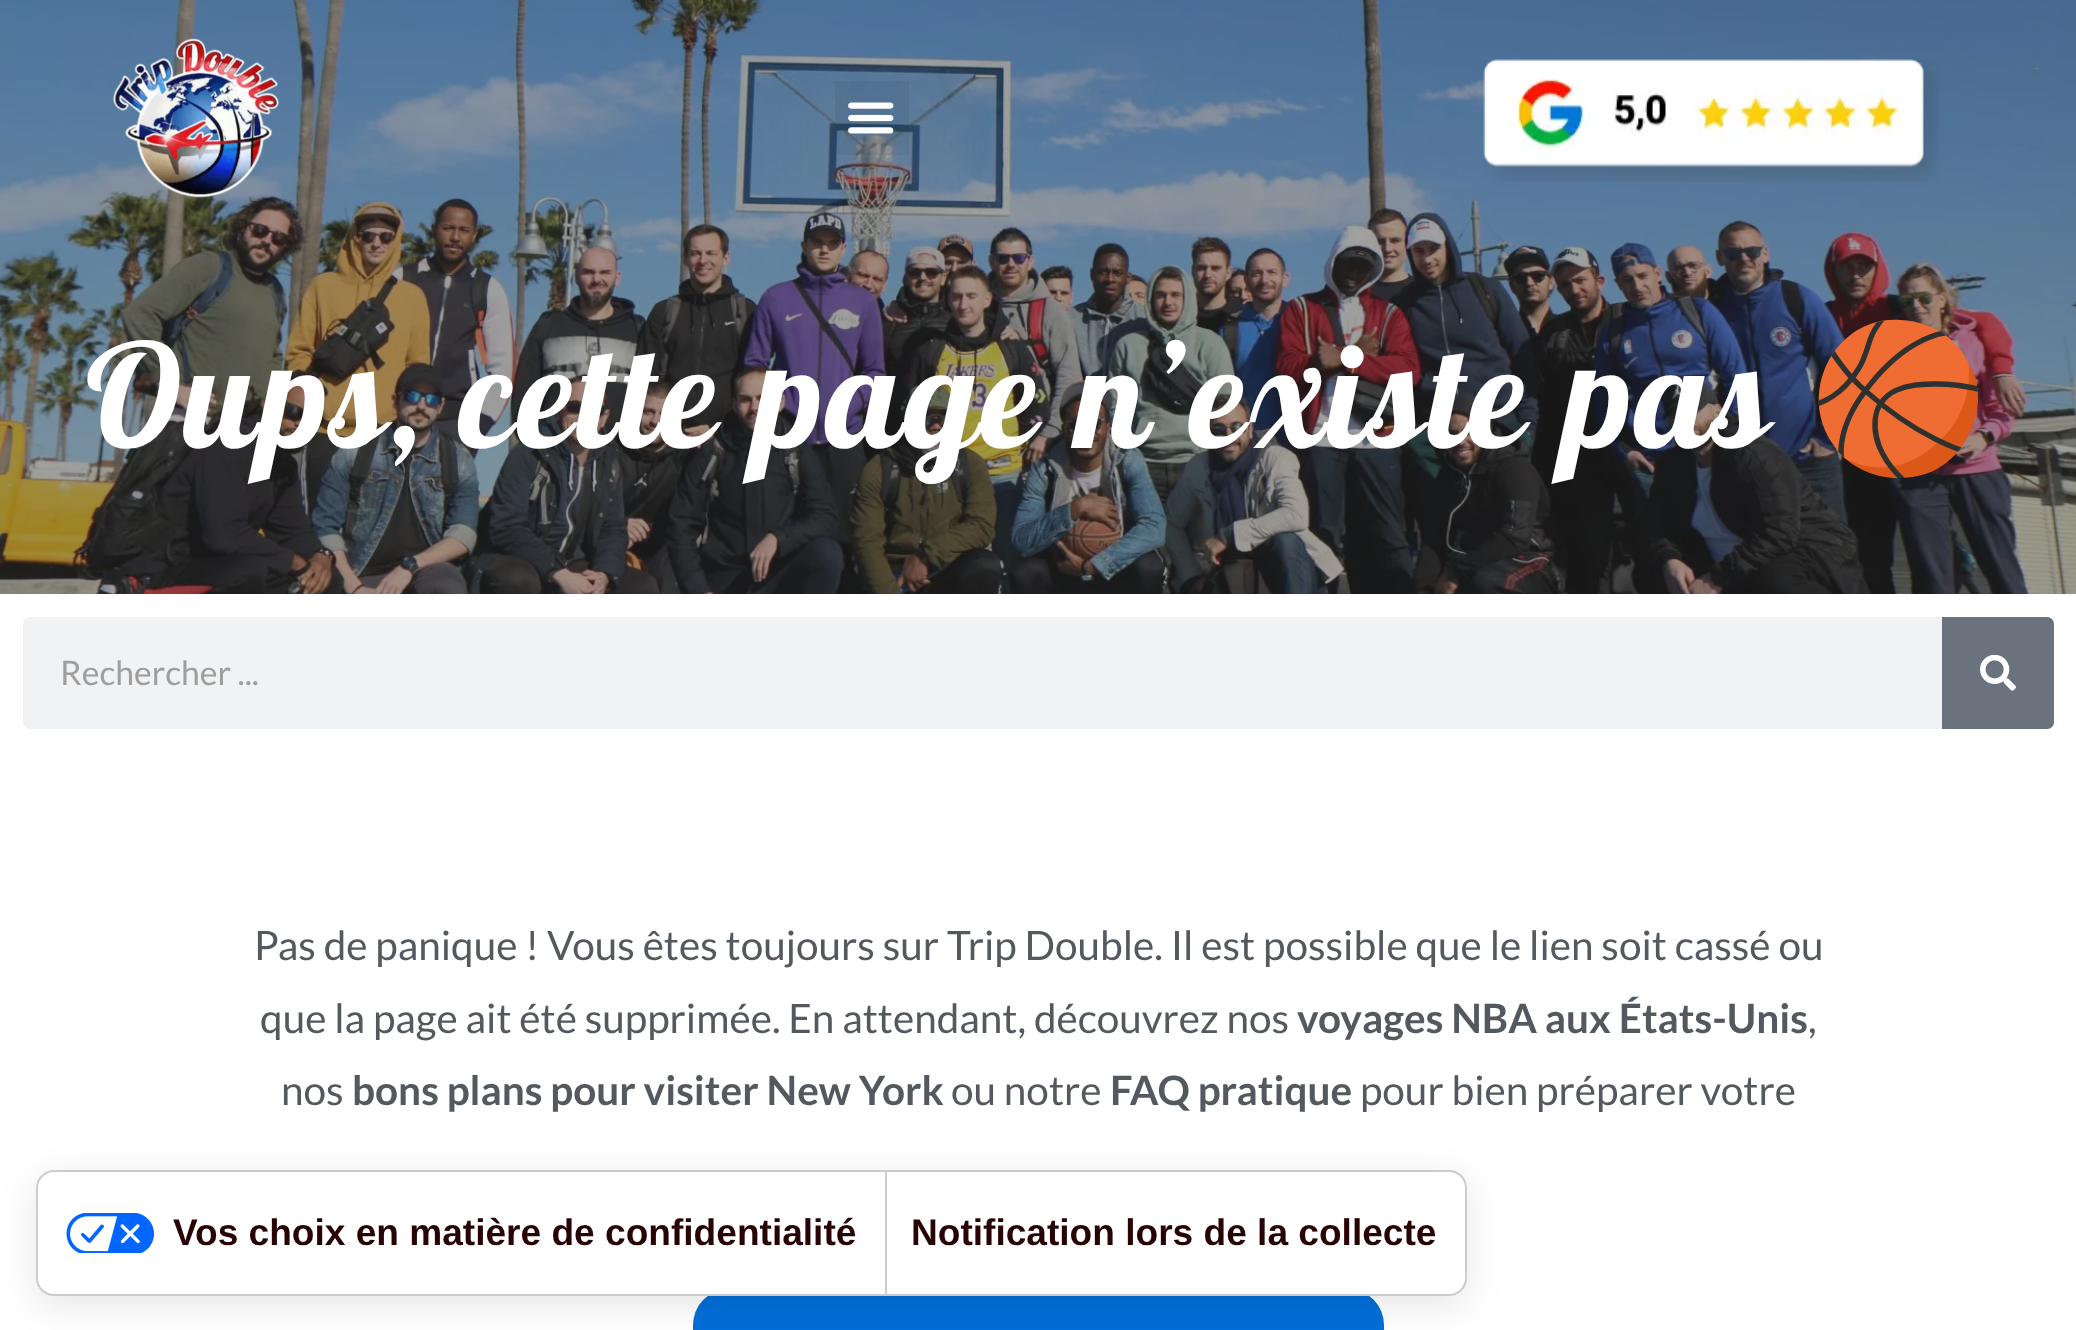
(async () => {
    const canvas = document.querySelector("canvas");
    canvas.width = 2076;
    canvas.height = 1330;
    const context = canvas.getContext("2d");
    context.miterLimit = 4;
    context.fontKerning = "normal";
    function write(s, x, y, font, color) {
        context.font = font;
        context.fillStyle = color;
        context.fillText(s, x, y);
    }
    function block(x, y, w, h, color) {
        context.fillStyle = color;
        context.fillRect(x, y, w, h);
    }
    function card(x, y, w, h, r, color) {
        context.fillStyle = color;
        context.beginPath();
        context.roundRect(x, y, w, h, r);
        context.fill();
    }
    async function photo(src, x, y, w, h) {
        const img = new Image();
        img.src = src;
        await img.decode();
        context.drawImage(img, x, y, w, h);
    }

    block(0, 0, 2076, 1330, "rgb(255, 255, 255)");
    await photo("media/4.png", 0, 0, 2076, 594);
    await photo("media/1.png", 113, 38, 166, 160);
    block(835, 81, 74, 74, "rgba(0, 0, 0, 0.05)");
    await photo("media/2.png", 848, 102, 46, 32);
    await photo("media/3.png", 1483, 59, 457, 123);
    context.letterSpacing = "3.6px";
    write("Oups, cette page n’existe pas", 85, 448, "144px Lobster", "rgb(255, 255, 255)");
    write("🏀", 1809, 448, "144px Noto Color Emoji", "rgb(255, 255, 255)");
    card(23, 617, 2031, 112, 7, "rgb(241, 242, 243)");
    context.letterSpacing = "0px";
    write("Rechercher ...", 60, 685, "33.75px Lato", "rgb(158, 158, 158)");
    context.fillStyle = "rgb(105, 114, 125)";
    context.beginPath();
    context.roundRect(1942, 617, 112, 112, [0, 7, 7, 0]);
    context.fill();
    await photo("media/5.png", 1980, 655, 36, 36);
    write("Pas de panique ! Vous êtes toujours sur Trip Double. Il est possible que le lien soit cassé ou", 254, 960, "40.5px Lato", "rgb(84, 89, 95)");
    write("que la page ait été supprimée. En attendant, découvrez nos", 260, 1033, "40.5px Lato", "rgb(84, 89, 95)");
    write("voyages NBA aux États-Unis", 1297, 1033, "bold 40.5px Lato", "rgb(84, 89, 95)");
    write(",", 1808, 1033, "40.5px Lato", "rgb(84, 89, 95)");
    write("nos", 281, 1105, "40.5px Lato", "rgb(84, 89, 95)");
    write("bons plans pour visiter New York", 352, 1105, "bold 40.5px Lato", "rgb(84, 89, 95)");
    write("ou notre", 951, 1105, "40.5px Lato", "rgb(84, 89, 95)");
    write("FAQ pratique", 1110, 1105, "bold 40.5px Lato", "rgb(84, 89, 95)");
    write("pour bien préparer votre", 1360, 1105, "40.5px Lato", "rgb(84, 89, 95)");
    card(693, 1289, 691, 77, 36, "rgb(0, 111, 216)");
    context.fillStyle = "rgba(0, 0, 0, 0.1)";
    context.filter = "blur(18px)";
    context.beginPath();
    context.roundRect(36, 1179, 1431, 126, 18);
    context.fill();
    context.filter = "none";
    context.fillStyle = "rgb(255, 255, 255)";
    context.beginPath();
    context.roundRect(37, 1171, 1429, 124, 17);
    context.fill();
    context.strokeStyle = "rgb(204, 204, 204)";
    context.lineWidth = 2;
    context.stroke();
    block(885, 1172, 2, 122, "rgb(204, 204, 204)");
    await photo("media/6.png", 66, 1213, 88, 40);
    write("Vos choix en matière de confidentialité", 173, 1245, "bold 37.1px Liberation Sans", "rgb(40, 4, 4)");
    write("Notification lors de la collecte", 911, 1245, "bold 37.1px Liberation Sans", "rgb(40, 4, 4)");
})();
